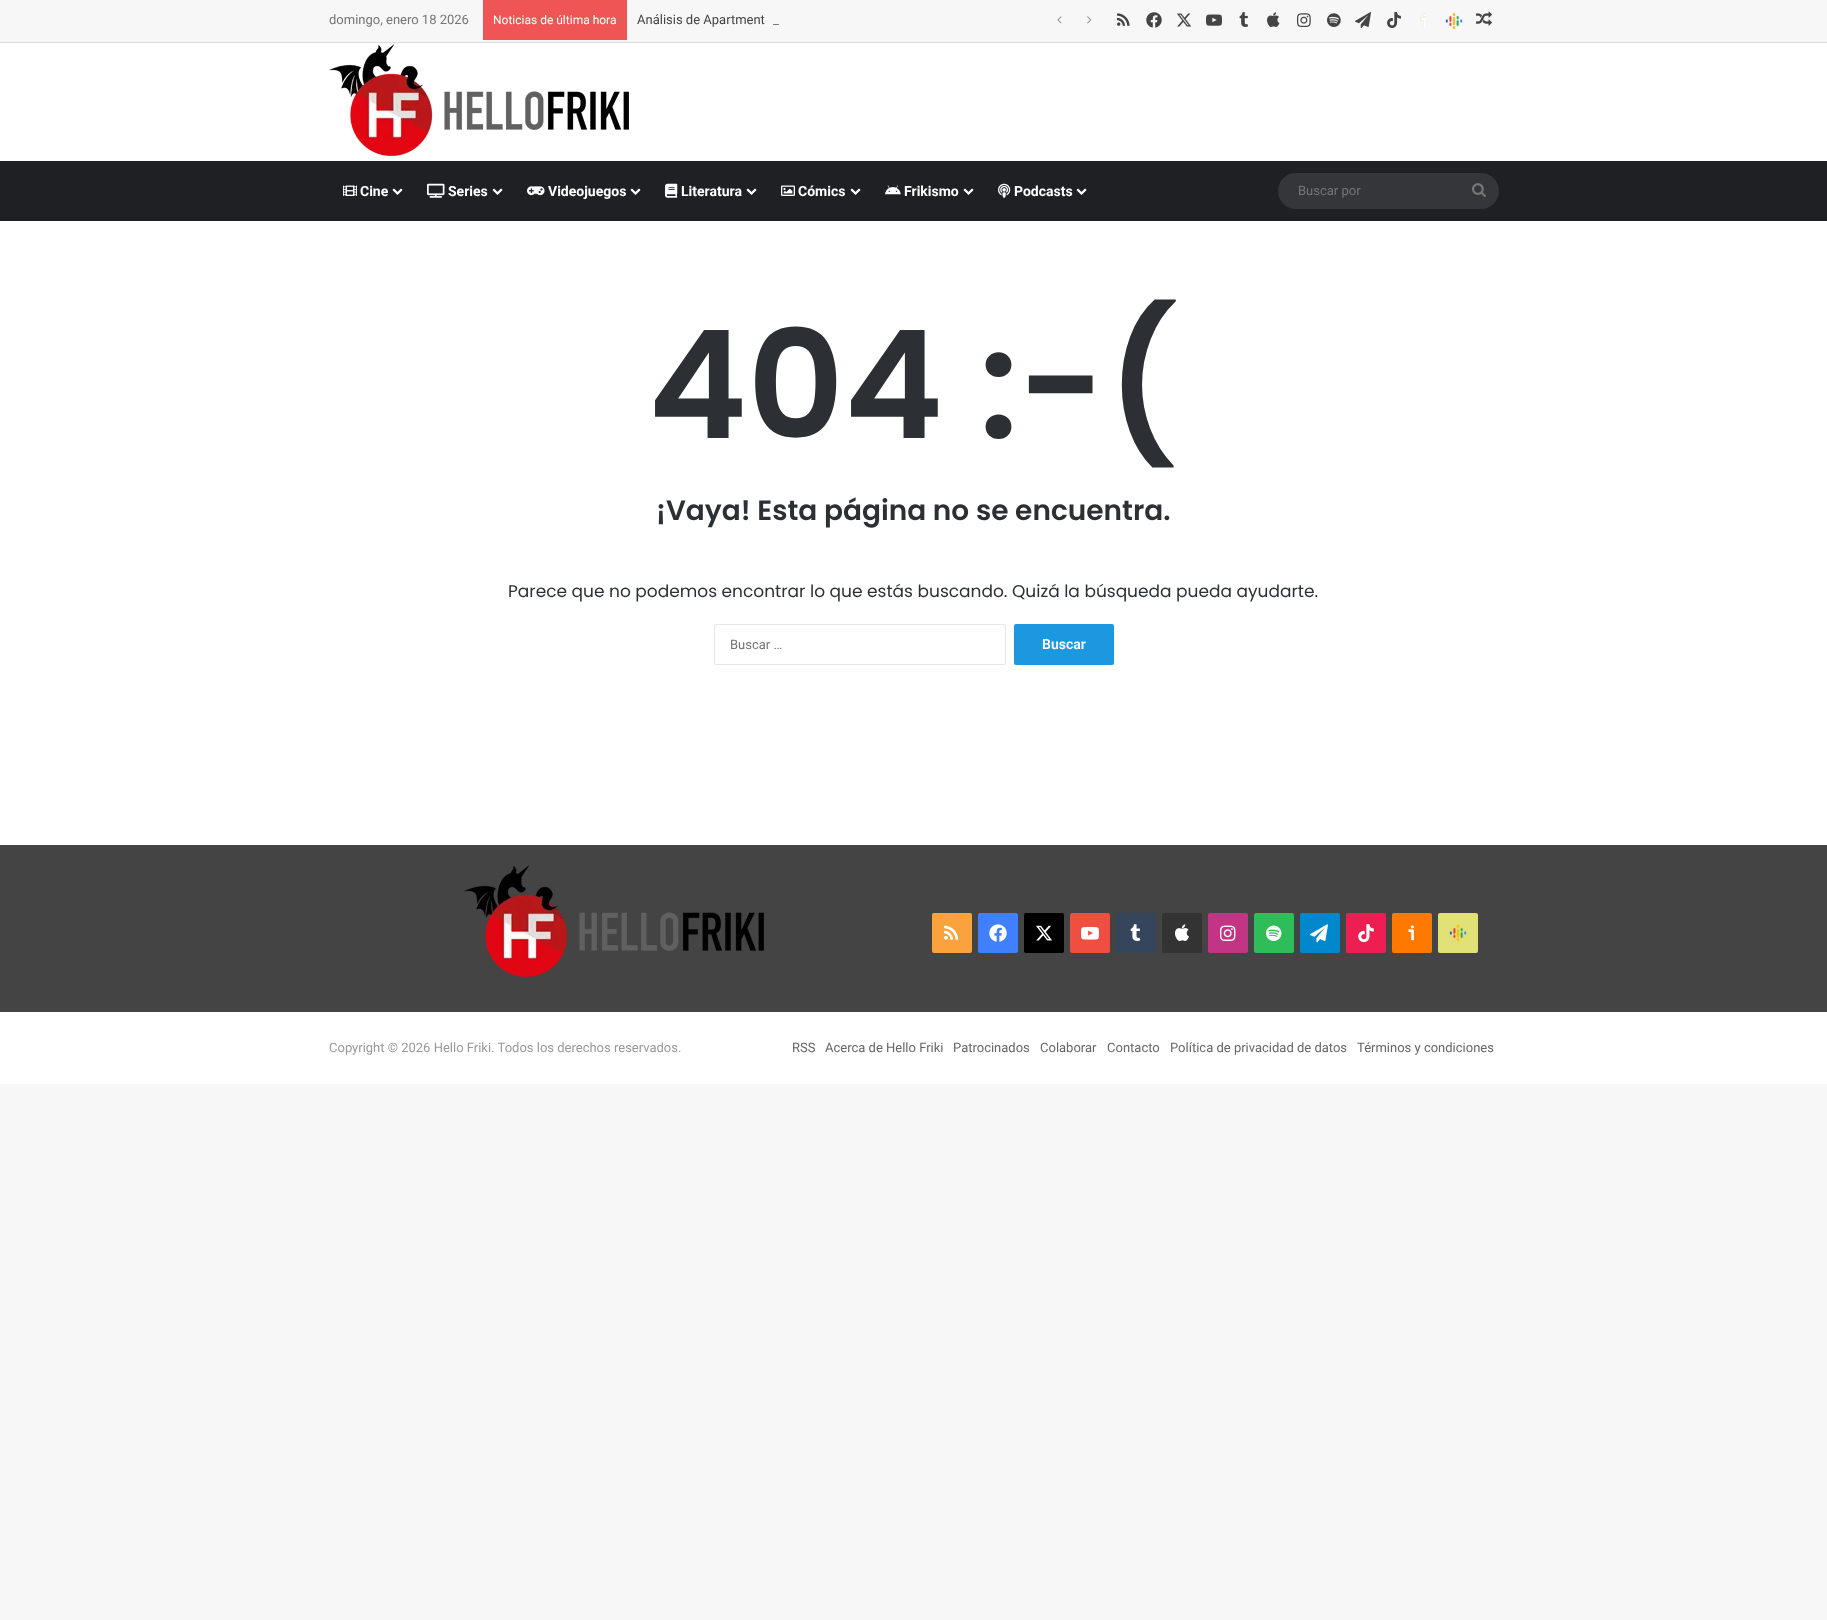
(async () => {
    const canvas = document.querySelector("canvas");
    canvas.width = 1827;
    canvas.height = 1620;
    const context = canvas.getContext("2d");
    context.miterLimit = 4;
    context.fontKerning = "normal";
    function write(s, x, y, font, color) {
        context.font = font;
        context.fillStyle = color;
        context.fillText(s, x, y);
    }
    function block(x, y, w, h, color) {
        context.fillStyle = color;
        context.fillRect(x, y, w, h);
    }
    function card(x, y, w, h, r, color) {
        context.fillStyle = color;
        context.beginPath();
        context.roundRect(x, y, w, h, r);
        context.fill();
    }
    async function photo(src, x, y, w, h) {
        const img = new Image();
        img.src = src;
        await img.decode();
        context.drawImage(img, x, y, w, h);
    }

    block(0, 0, 1827, 1620, "rgb(247, 247, 247)");
    block(0, 43, 1827, 802, "rgb(255, 255, 255)");
    block(0, 42, 1827, 1, "rgb(221, 221, 221)");
    write("domingo, enero 18 2026", 329, 24, "13px Roboto", "rgb(117, 117, 117)");
    block(483, 0, 144, 40, "rgb(240, 85, 85)");
    write("Noticias de última hora", 493, 24, "12px Roboto", "rgb(255, 255, 255)");
    write("Análisis de Apartment", 637, 24, "13px Roboto", "rgb(68, 68, 68)");
    write("_", 773, 24, "13px Roboto", "rgb(117, 117, 117)");
    await photo("media/1.png", 1057, 16, 5, 8);
    await photo("media/2.png", 1087, 16, 5, 8);
    await photo("media/3.png", 1117, 13, 13, 13);
    await photo("media/4.png", 1146, 12, 16, 16);
    await photo("media/5.png", 1177, 13, 15, 14);
    await photo("media/6.png", 1206, 14, 16, 12);
    await photo("media/7.png", 1239, 12, 10, 15);
    await photo("media/8.png", 1267, 12, 13, 15);
    await photo("media/9.png", 1297, 13, 14, 14);
    await photo("media/10.png", 1327, 13, 14, 14);
    await photo("media/11.png", 1355, 12, 16, 17);
    await photo("media/12.png", 1387, 12, 14, 16);
    await photo("media/13.png", 1420, 13, 6, 15);
    await photo("media/14.png", 1445, 12, 18, 18);
    await photo("media/15.png", 1476, 11, 16, 15);
    await photo("media/16.png", 329, 44, 300, 112);
    block(0, 161, 1827, 60, "rgb(31, 32, 36)");
    await photo("media/17.png", 343, 185, 14, 11);
    write("Cine", 360, 196, "bold 14px Roboto", "rgb(255, 255, 255)");
    await photo("media/18.png", 392, 188, 11, 7);
    await photo("media/19.png", 427, 183, 18, 15);
    write("Series", 448, 196, "bold 14px Roboto", "rgb(255, 255, 255)");
    await photo("media/18.png", 492, 188, 11, 7);
    await photo("media/20.png", 527, 186, 18, 10);
    write("Videojuegos", 548, 196, "bold 14px Roboto", "rgb(255, 255, 255)");
    await photo("media/18.png", 630, 188, 11, 7);
    await photo("media/21.png", 665, 183, 13, 15);
    write("Literatura", 681, 196, "bold 14px Roboto", "rgb(255, 255, 255)");
    await photo("media/18.png", 746, 188, 11, 7);
    await photo("media/22.png", 781, 185, 14, 11);
    write("Cómics", 798, 196, "bold 14px Roboto", "rgb(255, 255, 255)");
    await photo("media/18.png", 850, 188, 11, 7);
    await photo("media/23.png", 885, 185, 16, 10);
    write("Frikismo", 904, 196, "bold 14px Roboto", "rgb(255, 255, 255)");
    await photo("media/18.png", 963, 188, 11, 7);
    await photo("media/24.png", 998, 183, 13, 15);
    write("Podcasts", 1014, 196, "bold 14px Roboto", "rgb(255, 255, 255)");
    await photo("media/18.png", 1076, 188, 11, 7);
    card(1278, 173, 221, 36, 18, "rgb(53, 54, 58)");
    write("Buscar por", 1298, 195, "13px Roboto", "rgb(117, 117, 117)");
    await photo("media/25.png", 1472, 183, 14, 14);
    write("404 :-(", 648, 438, "600 150px Poppins", "rgb(44, 47, 52)");
    write("¡Vaya! Esta página no se encuentra.", 656, 520, "600 28px Poppins", "rgb(44, 47, 52)");
    write("Parece que no podemos encontrar lo que estás buscando. Quizá la búsqueda pueda ayudarte.", 508, 597, "17px Poppins", "rgb(44, 47, 52)");
    context.beginPath();
    context.roundRect(714.5, 624.5, 291, 40, 1.5);
    context.strokeStyle = "rgb(230, 230, 230)";
    context.stroke();
    write("Buscar …", 730, 649, "13px Roboto", "rgb(117, 117, 117)");
    card(1014, 624, 100, 41, 2, "rgb(27, 152, 224)");
    write("Buscar", 1042, 649, "600 14px Roboto", "rgb(255, 255, 255)");
    block(0, 845, 1827, 167, "rgb(68, 68, 68)");
    await photo("media/26.png", 464, 865, 300, 112);
    card(932, 913, 40, 40, 2, "rgb(250, 163, 61)");
    await photo("media/27.png", 944, 925, 15, 15);
    card(978, 913, 40, 40, 2, "rgb(64, 128, 255)");
    await photo("media/28.png", 989, 924, 18, 18);
    card(1024, 913, 40, 40, 2, "rgb(0, 0, 0)");
    await photo("media/29.png", 1036, 925, 16, 16);
    card(1070, 913, 40, 40, 2, "rgb(239, 78, 65)");
    await photo("media/30.png", 1081, 926, 18, 14);
    card(1116, 913, 40, 40, 2, "rgb(53, 70, 92)");
    await photo("media/31.png", 1130, 924, 11, 17);
    card(1162, 913, 40, 40, 2, "rgb(51, 51, 51)");
    await photo("media/32.png", 1175, 924, 14, 17);
    card(1208, 913, 40, 40, 2, "rgb(193, 53, 132)");
    await photo("media/33.png", 1220, 925, 16, 16);
    card(1254, 913, 40, 40, 2, "rgb(46, 189, 89)");
    await photo("media/34.png", 1266, 925, 16, 16);
    card(1300, 913, 40, 40, 2, "rgb(0, 136, 204)");
    await photo("media/35.png", 1310, 924, 18, 19);
    card(1346, 913, 40, 40, 2, "rgb(238, 29, 82)");
    await photo("media/36.png", 1358, 924, 16, 19);
    card(1392, 913, 40, 40, 2, "rgb(255, 121, 0)");
    await photo("media/37.png", 1408, 925, 6, 16);
    card(1438, 913, 40, 40, 2, "rgb(226, 225, 120)");
    await photo("media/38.png", 1449, 924, 18, 18);
    block(0, 1012, 1827, 72, "rgb(255, 255, 255)");
    write("Copyright © 2026 Hello Friki. Todos los derechos reservados.", 329, 1052, "13px Roboto", "rgb(153, 153, 153)");
    write("RSS", 792, 1052, "13px Roboto", "rgb(102, 102, 102)");
    write("Acerca de Hello Friki", 825, 1052, "13px Roboto", "rgb(102, 102, 102)");
    write("Patrocinados", 953, 1052, "13px Roboto", "rgb(102, 102, 102)");
    write("Colaborar", 1040, 1052, "13px Roboto", "rgb(102, 102, 102)");
    write("Contacto", 1107, 1052, "13px Roboto", "rgb(102, 102, 102)");
    write("Política de privacidad de datos", 1170, 1052, "13px Roboto", "rgb(102, 102, 102)");
    write("Términos y condiciones", 1357, 1052, "13px Roboto", "rgb(102, 102, 102)");
})();
